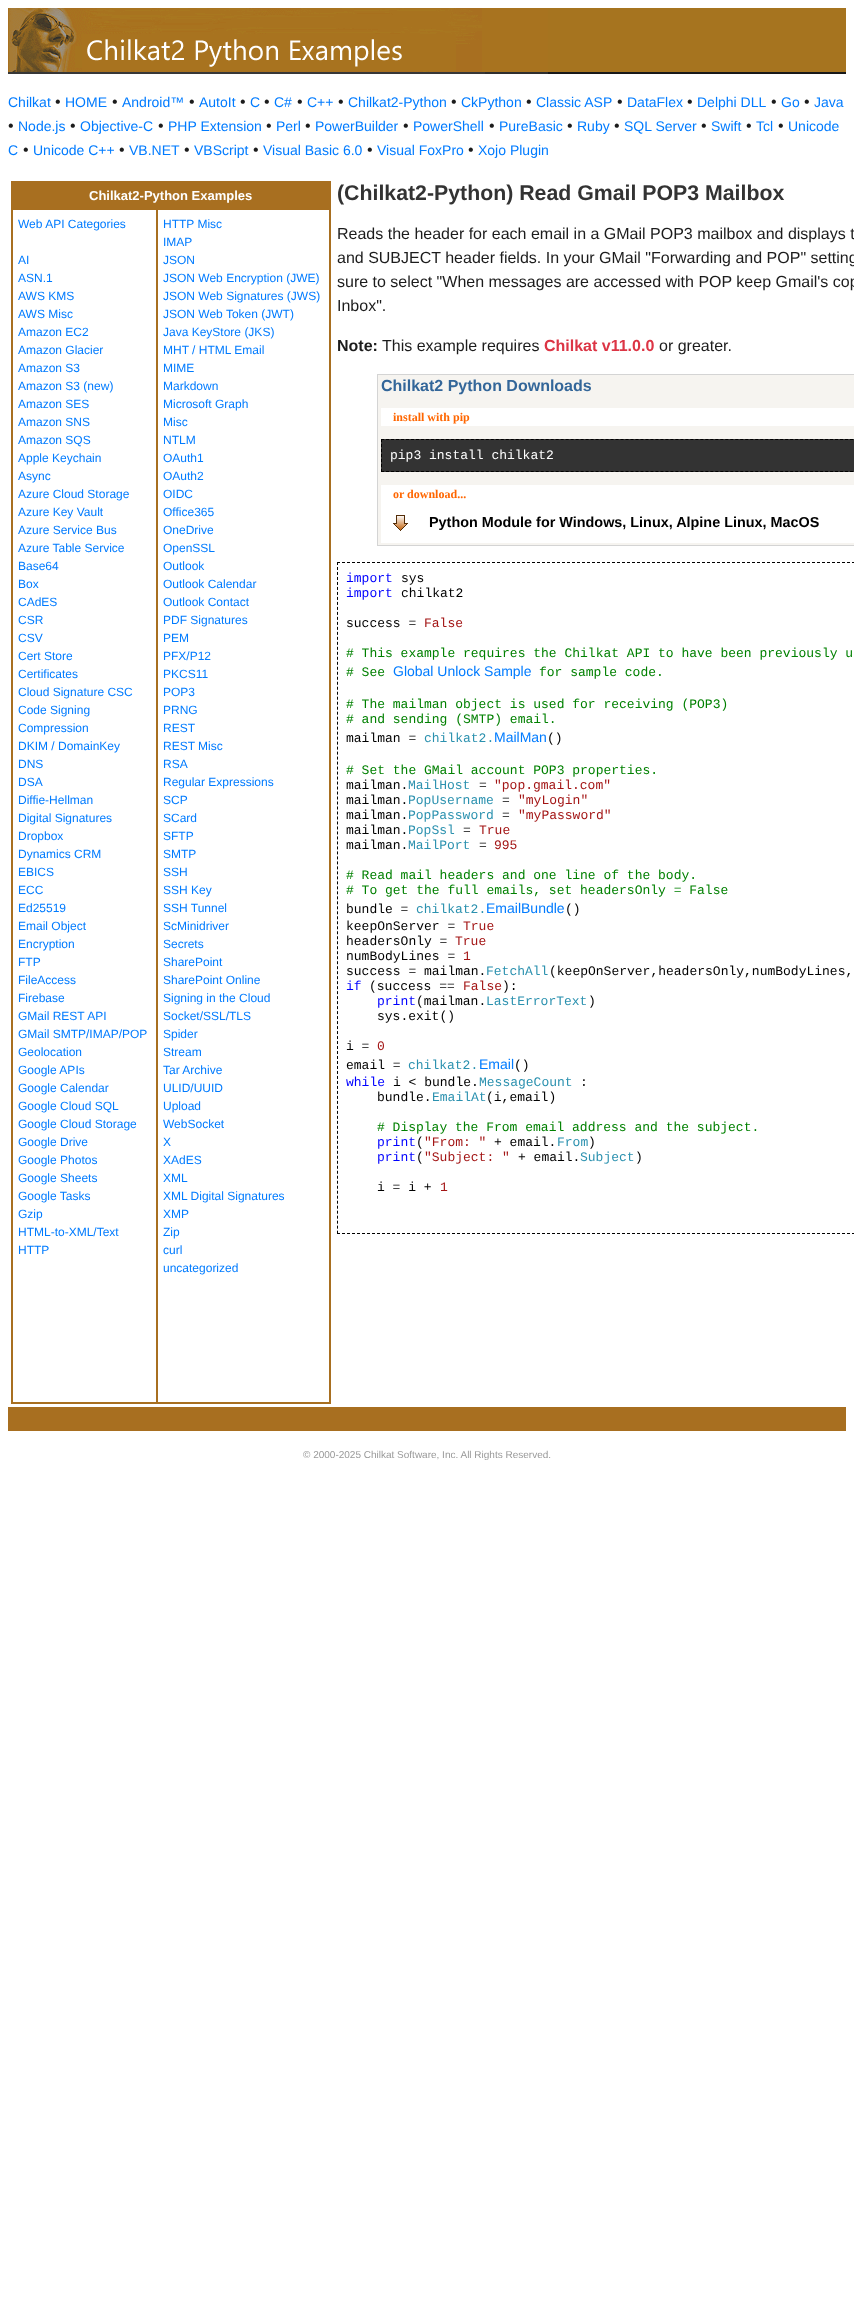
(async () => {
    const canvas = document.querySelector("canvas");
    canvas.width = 854;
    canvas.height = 2298;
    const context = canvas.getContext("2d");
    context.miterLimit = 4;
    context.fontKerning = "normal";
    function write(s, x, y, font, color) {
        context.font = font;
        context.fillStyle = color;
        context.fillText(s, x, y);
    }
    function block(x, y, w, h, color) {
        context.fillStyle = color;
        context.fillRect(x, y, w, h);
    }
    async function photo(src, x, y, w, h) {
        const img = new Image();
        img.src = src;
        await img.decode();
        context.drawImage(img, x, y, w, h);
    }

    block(0, 0, 854, 2298, "rgb(255, 255, 255)");
    await photo("media/1.png", 548, 8, 298, 66);
    await photo("media/2.png", 8, 8, 540, 66);
    write("Chilkat", 8, 107, "14px Liberation Sans", "rgb(0, 123, 255)");
    write("•", 55, 107, "16px Liberation Sans", "rgb(28, 28, 28)");
    write("HOME", 65, 107, "14px Liberation Sans", "rgb(0, 123, 255)");
    write("•", 112, 107, "16px Liberation Sans", "rgb(28, 28, 28)");
    write("Android™", 122, 107, "14px Liberation Sans", "rgb(0, 123, 255)");
    write("•", 189, 107, "16px Liberation Sans", "rgb(28, 28, 28)");
    write("AutoIt", 199, 107, "14px Liberation Sans", "rgb(0, 123, 255)");
    write("•", 240, 107, "16px Liberation Sans", "rgb(28, 28, 28)");
    write("C", 250, 107, "14px Liberation Sans", "rgb(0, 123, 255)");
    write("•", 264, 107, "16px Liberation Sans", "rgb(28, 28, 28)");
    write("C#", 274, 107, "14px Liberation Sans", "rgb(0, 123, 255)");
    write("•", 297, 107, "16px Liberation Sans", "rgb(28, 28, 28)");
    write("C++", 307, 107, "14px Liberation Sans", "rgb(0, 123, 255)");
    write("•", 338, 107, "16px Liberation Sans", "rgb(28, 28, 28)");
    write("Chilkat2-Python", 348, 107, "14px Liberation Sans", "rgb(0, 123, 255)");
    write("•", 451, 107, "16px Liberation Sans", "rgb(28, 28, 28)");
    write("CkPython", 461, 107, "14px Liberation Sans", "rgb(0, 123, 255)");
    write("•", 526, 107, "16px Liberation Sans", "rgb(28, 28, 28)");
    write("Classic ASP", 536, 107, "14px Liberation Sans", "rgb(0, 123, 255)");
    write("•", 617, 107, "16px Liberation Sans", "rgb(28, 28, 28)");
    write("DataFlex", 627, 107, "14px Liberation Sans", "rgb(0, 123, 255)");
    write("•", 687, 107, "16px Liberation Sans", "rgb(28, 28, 28)");
    write("Delphi DLL", 697, 107, "14px Liberation Sans", "rgb(0, 123, 255)");
    write("•", 771, 107, "16px Liberation Sans", "rgb(28, 28, 28)");
    write("Go", 781, 107, "14px Liberation Sans", "rgb(0, 123, 255)");
    write("•", 804, 107, "16px Liberation Sans", "rgb(28, 28, 28)");
    write("Java", 814, 107, "14px Liberation Sans", "rgb(0, 123, 255)");
    write("•", 8, 131, "16px Liberation Sans", "rgb(28, 28, 28)");
    write("Node.js", 18, 131, "14px Liberation Sans", "rgb(0, 123, 255)");
    write("•", 70, 131, "16px Liberation Sans", "rgb(28, 28, 28)");
    write("Objective-C", 80, 131, "14px Liberation Sans", "rgb(0, 123, 255)");
    write("•", 158, 131, "16px Liberation Sans", "rgb(28, 28, 28)");
    write("PHP Extension", 168, 131, "14px Liberation Sans", "rgb(0, 123, 255)");
    write("•", 266, 131, "16px Liberation Sans", "rgb(28, 28, 28)");
    write("Perl", 276, 131, "14px Liberation Sans", "rgb(0, 123, 255)");
    write("•", 305, 131, "16px Liberation Sans", "rgb(28, 28, 28)");
    write("PowerBuilder", 315, 131, "14px Liberation Sans", "rgb(0, 123, 255)");
    write("•", 403, 131, "16px Liberation Sans", "rgb(28, 28, 28)");
    write("PowerShell", 413, 131, "14px Liberation Sans", "rgb(0, 123, 255)");
    write("•", 489, 131, "16px Liberation Sans", "rgb(28, 28, 28)");
    write("PureBasic", 499, 131, "14px Liberation Sans", "rgb(0, 123, 255)");
    write("•", 567, 131, "16px Liberation Sans", "rgb(28, 28, 28)");
    write("Ruby", 577, 131, "14px Liberation Sans", "rgb(0, 123, 255)");
    write("•", 614, 131, "16px Liberation Sans", "rgb(28, 28, 28)");
    write("SQL Server", 624, 131, "14px Liberation Sans", "rgb(0, 123, 255)");
    write("•", 701, 131, "16px Liberation Sans", "rgb(28, 28, 28)");
    write("Swift", 711, 131, "14px Liberation Sans", "rgb(0, 123, 255)");
    write("•", 746, 131, "16px Liberation Sans", "rgb(28, 28, 28)");
    write("Tcl", 756, 131, "14px Liberation Sans", "rgb(0, 123, 255)");
    write("•", 778, 131, "16px Liberation Sans", "rgb(28, 28, 28)");
    write("Unicode", 788, 131, "14px Liberation Sans", "rgb(0, 123, 255)");
    write("C", 8, 155, "14px Liberation Sans", "rgb(0, 123, 255)");
    write("•", 23, 155, "16px Liberation Sans", "rgb(28, 28, 28)");
    write("Unicode C++", 33, 155, "14px Liberation Sans", "rgb(0, 123, 255)");
    write("•", 119, 155, "16px Liberation Sans", "rgb(28, 28, 28)");
    write("VB.NET", 129, 155, "14px Liberation Sans", "rgb(0, 123, 255)");
    write("•", 184, 155, "16px Liberation Sans", "rgb(28, 28, 28)");
    write("VBScript", 194, 155, "14px Liberation Sans", "rgb(0, 123, 255)");
    write("•", 253, 155, "16px Liberation Sans", "rgb(28, 28, 28)");
    write("Visual Basic 6.0", 263, 155, "14px Liberation Sans", "rgb(0, 123, 255)");
    write("•", 367, 155, "16px Liberation Sans", "rgb(28, 28, 28)");
    write("Visual FoxPro", 377, 155, "14px Liberation Sans", "rgb(0, 123, 255)");
    write("•", 468, 155, "16px Liberation Sans", "rgb(28, 28, 28)");
    write("Xojo Plugin", 478, 155, "14px Liberation Sans", "rgb(0, 123, 255)");
    context.strokeStyle = "rgb(168, 111, 32)";
    context.strokeRect(11.5, 181.5, 319, 1222);
    block(12, 182, 318, 27, "rgb(168, 111, 32)");
    write("Chilkat2-Python Examples", 89, 200, "bold 13px Liberation Sans", "rgb(255, 255, 255)");
    context.strokeRect(12.5, 209.5, 144, 1193);
    write("Web API Categories", 18, 228, "12px Liberation Sans", "rgb(0, 123, 255)");
    write("AI", 18, 264, "12px Liberation Sans", "rgb(0, 123, 255)");
    write("ASN.1", 18, 282, "12px Liberation Sans", "rgb(0, 123, 255)");
    write("AWS KMS", 18, 300, "12px Liberation Sans", "rgb(0, 123, 255)");
    write("AWS Misc", 18, 318, "12px Liberation Sans", "rgb(0, 123, 255)");
    write("Amazon EC2", 18, 336, "12px Liberation Sans", "rgb(0, 123, 255)");
    write("Amazon Glacier", 18, 354, "12px Liberation Sans", "rgb(0, 123, 255)");
    write("Amazon S3", 18, 372, "12px Liberation Sans", "rgb(0, 123, 255)");
    write("Amazon S3 (new)", 18, 390, "12px Liberation Sans", "rgb(0, 123, 255)");
    write("Amazon SES", 18, 408, "12px Liberation Sans", "rgb(0, 123, 255)");
    write("Amazon SNS", 18, 426, "12px Liberation Sans", "rgb(0, 123, 255)");
    write("Amazon SQS", 18, 444, "12px Liberation Sans", "rgb(0, 123, 255)");
    write("Apple Keychain", 18, 462, "12px Liberation Sans", "rgb(0, 123, 255)");
    write("Async", 18, 480, "12px Liberation Sans", "rgb(0, 123, 255)");
    write("Azure Cloud Storage", 18, 498, "12px Liberation Sans", "rgb(0, 123, 255)");
    write("Azure Key Vault", 18, 516, "12px Liberation Sans", "rgb(0, 123, 255)");
    write("Azure Service Bus", 18, 534, "12px Liberation Sans", "rgb(0, 123, 255)");
    write("Azure Table Service", 18, 552, "12px Liberation Sans", "rgb(0, 123, 255)");
    write("Base64", 18, 570, "12px Liberation Sans", "rgb(0, 123, 255)");
    write("Box", 18, 588, "12px Liberation Sans", "rgb(0, 123, 255)");
    write("CAdES", 18, 606, "12px Liberation Sans", "rgb(0, 123, 255)");
    write("CSR", 18, 624, "12px Liberation Sans", "rgb(0, 123, 255)");
    write("CSV", 18, 642, "12px Liberation Sans", "rgb(0, 123, 255)");
    write("Cert Store", 18, 660, "12px Liberation Sans", "rgb(0, 123, 255)");
    write("Certificates", 18, 678, "12px Liberation Sans", "rgb(0, 123, 255)");
    write("Cloud Signature CSC", 18, 696, "12px Liberation Sans", "rgb(0, 123, 255)");
    write("Code Signing", 18, 714, "12px Liberation Sans", "rgb(0, 123, 255)");
    write("Compression", 18, 732, "12px Liberation Sans", "rgb(0, 123, 255)");
    write("DKIM / DomainKey", 18, 750, "12px Liberation Sans", "rgb(0, 123, 255)");
    write("DNS", 18, 768, "12px Liberation Sans", "rgb(0, 123, 255)");
    write("DSA", 18, 786, "12px Liberation Sans", "rgb(0, 123, 255)");
    write("Diffie-Hellman", 18, 804, "12px Liberation Sans", "rgb(0, 123, 255)");
    write("Digital Signatures", 18, 822, "12px Liberation Sans", "rgb(0, 123, 255)");
    write("Dropbox", 18, 840, "12px Liberation Sans", "rgb(0, 123, 255)");
    write("Dynamics CRM", 18, 858, "12px Liberation Sans", "rgb(0, 123, 255)");
    write("EBICS", 18, 876, "12px Liberation Sans", "rgb(0, 123, 255)");
    write("ECC", 18, 894, "12px Liberation Sans", "rgb(0, 123, 255)");
    write("Ed25519", 18, 912, "12px Liberation Sans", "rgb(0, 123, 255)");
    write("Email Object", 18, 930, "12px Liberation Sans", "rgb(0, 123, 255)");
    write("Encryption", 18, 948, "12px Liberation Sans", "rgb(0, 123, 255)");
    write("FTP", 18, 966, "12px Liberation Sans", "rgb(0, 123, 255)");
    write("FileAccess", 18, 984, "12px Liberation Sans", "rgb(0, 123, 255)");
    write("Firebase", 18, 1002, "12px Liberation Sans", "rgb(0, 123, 255)");
    write("GMail REST API", 18, 1020, "12px Liberation Sans", "rgb(0, 123, 255)");
    write("GMail SMTP/IMAP/POP", 18, 1038, "12px Liberation Sans", "rgb(0, 123, 255)");
    write("Geolocation", 18, 1056, "12px Liberation Sans", "rgb(0, 123, 255)");
    write("Google APIs", 18, 1074, "12px Liberation Sans", "rgb(0, 123, 255)");
    write("Google Calendar", 18, 1092, "12px Liberation Sans", "rgb(0, 123, 255)");
    write("Google Cloud SQL", 18, 1110, "12px Liberation Sans", "rgb(0, 123, 255)");
    write("Google Cloud Storage", 18, 1128, "12px Liberation Sans", "rgb(0, 123, 255)");
    write("Google Drive", 18, 1146, "12px Liberation Sans", "rgb(0, 123, 255)");
    write("Google Photos", 18, 1164, "12px Liberation Sans", "rgb(0, 123, 255)");
    write("Google Sheets", 18, 1182, "12px Liberation Sans", "rgb(0, 123, 255)");
    write("Google Tasks", 18, 1200, "12px Liberation Sans", "rgb(0, 123, 255)");
    write("Gzip", 18, 1218, "12px Liberation Sans", "rgb(0, 123, 255)");
    write("HTML-to-XML/Text", 18, 1236, "12px Liberation Sans", "rgb(0, 123, 255)");
    write("HTTP", 18, 1254, "12px Liberation Sans", "rgb(0, 123, 255)");
    context.strokeRect(157.5, 209.5, 172, 1193);
    write("HTTP Misc", 163, 228, "12px Liberation Sans", "rgb(0, 123, 255)");
    write("IMAP", 163, 246, "12px Liberation Sans", "rgb(0, 123, 255)");
    write("JSON", 163, 264, "12px Liberation Sans", "rgb(0, 123, 255)");
    write("JSON Web Encryption (JWE)", 163, 282, "12px Liberation Sans", "rgb(0, 123, 255)");
    write("JSON Web Signatures (JWS)", 163, 300, "12px Liberation Sans", "rgb(0, 123, 255)");
    write("JSON Web Token (JWT)", 163, 318, "12px Liberation Sans", "rgb(0, 123, 255)");
    write("Java KeyStore (JKS)", 163, 336, "12px Liberation Sans", "rgb(0, 123, 255)");
    write("MHT / HTML Email", 163, 354, "12px Liberation Sans", "rgb(0, 123, 255)");
    write("MIME", 163, 372, "12px Liberation Sans", "rgb(0, 123, 255)");
    write("Markdown", 163, 390, "12px Liberation Sans", "rgb(0, 123, 255)");
    write("Microsoft Graph", 163, 408, "12px Liberation Sans", "rgb(0, 123, 255)");
    write("Misc", 163, 426, "12px Liberation Sans", "rgb(0, 123, 255)");
    write("NTLM", 163, 444, "12px Liberation Sans", "rgb(0, 123, 255)");
    write("OAuth1", 163, 462, "12px Liberation Sans", "rgb(0, 123, 255)");
    write("OAuth2", 163, 480, "12px Liberation Sans", "rgb(0, 123, 255)");
    write("OIDC", 163, 498, "12px Liberation Sans", "rgb(0, 123, 255)");
    write("Office365", 163, 516, "12px Liberation Sans", "rgb(0, 123, 255)");
    write("OneDrive", 163, 534, "12px Liberation Sans", "rgb(0, 123, 255)");
    write("OpenSSL", 163, 552, "12px Liberation Sans", "rgb(0, 123, 255)");
    write("Outlook", 163, 570, "12px Liberation Sans", "rgb(0, 123, 255)");
    write("Outlook Calendar", 163, 588, "12px Liberation Sans", "rgb(0, 123, 255)");
    write("Outlook Contact", 163, 606, "12px Liberation Sans", "rgb(0, 123, 255)");
    write("PDF Signatures", 163, 624, "12px Liberation Sans", "rgb(0, 123, 255)");
    write("PEM", 163, 642, "12px Liberation Sans", "rgb(0, 123, 255)");
    write("PFX/P12", 163, 660, "12px Liberation Sans", "rgb(0, 123, 255)");
    write("PKCS11", 163, 678, "12px Liberation Sans", "rgb(0, 123, 255)");
    write("POP3", 163, 696, "12px Liberation Sans", "rgb(0, 123, 255)");
    write("PRNG", 163, 714, "12px Liberation Sans", "rgb(0, 123, 255)");
    write("REST", 163, 732, "12px Liberation Sans", "rgb(0, 123, 255)");
    write("REST Misc", 163, 750, "12px Liberation Sans", "rgb(0, 123, 255)");
    write("RSA", 163, 768, "12px Liberation Sans", "rgb(0, 123, 255)");
    write("Regular Expressions", 163, 786, "12px Liberation Sans", "rgb(0, 123, 255)");
    write("SCP", 163, 804, "12px Liberation Sans", "rgb(0, 123, 255)");
    write("SCard", 163, 822, "12px Liberation Sans", "rgb(0, 123, 255)");
    write("SFTP", 163, 840, "12px Liberation Sans", "rgb(0, 123, 255)");
    write("SMTP", 163, 858, "12px Liberation Sans", "rgb(0, 123, 255)");
    write("SSH", 163, 876, "12px Liberation Sans", "rgb(0, 123, 255)");
    write("SSH Key", 163, 894, "12px Liberation Sans", "rgb(0, 123, 255)");
    write("SSH Tunnel", 163, 912, "12px Liberation Sans", "rgb(0, 123, 255)");
    write("ScMinidriver", 163, 930, "12px Liberation Sans", "rgb(0, 123, 255)");
    write("Secrets", 163, 948, "12px Liberation Sans", "rgb(0, 123, 255)");
    write("SharePoint", 163, 966, "12px Liberation Sans", "rgb(0, 123, 255)");
    write("SharePoint Online", 163, 984, "12px Liberation Sans", "rgb(0, 123, 255)");
    write("Signing in the Cloud", 163, 1002, "12px Liberation Sans", "rgb(0, 123, 255)");
    write("Socket/SSL/TLS", 163, 1020, "12px Liberation Sans", "rgb(0, 123, 255)");
    write("Spider", 163, 1038, "12px Liberation Sans", "rgb(0, 123, 255)");
    write("Stream", 163, 1056, "12px Liberation Sans", "rgb(0, 123, 255)");
    write("Tar Archive", 163, 1074, "12px Liberation Sans", "rgb(0, 123, 255)");
    write("ULID/UUID", 163, 1092, "12px Liberation Sans", "rgb(0, 123, 255)");
    write("Upload", 163, 1110, "12px Liberation Sans", "rgb(0, 123, 255)");
    write("WebSocket", 163, 1128, "12px Liberation Sans", "rgb(0, 123, 255)");
    write("X", 163, 1146, "12px Liberation Sans", "rgb(0, 123, 255)");
    write("XAdES", 163, 1164, "12px Liberation Sans", "rgb(0, 123, 255)");
    write("XML", 163, 1182, "12px Liberation Sans", "rgb(0, 123, 255)");
    write("XML Digital Signatures", 163, 1200, "12px Liberation Sans", "rgb(0, 123, 255)");
    write("XMP", 163, 1218, "12px Liberation Sans", "rgb(0, 123, 255)");
    write("Zip", 163, 1236, "12px Liberation Sans", "rgb(0, 123, 255)");
    write("curl", 163, 1254, "12px Liberation Sans", "rgb(0, 123, 255)");
    write("uncategorized", 163, 1272, "12px Liberation Sans", "rgb(0, 123, 255)");
    write("(Chilkat2-Python) Read Gmail POP3 Mailbox", 337, 200, "bold 21.3px Liberation Sans", "rgb(51, 51, 51)");
    write("Reads the header for each email in a GMail POP3 mailbox and displays t", 337, 239, "16px Liberation Sans", "rgb(28, 28, 28)");
    write("and SUBJECT header fields. In your GMail \"Forwarding and POP\" setting", 337, 263, "16px Liberation Sans", "rgb(28, 28, 28)");
    write("sure to select \"When messages are accessed with POP keep Gmail's cop", 337, 287, "16px Liberation Sans", "rgb(28, 28, 28)");
    write("Inbox\".", 337, 311, "16px Liberation Sans", "rgb(28, 28, 28)");
    write("Note:", 337, 351, "bold 16px Liberation Sans", "rgb(28, 28, 28)");
    write("This example requires", 382, 351, "16px Liberation Sans", "rgb(28, 28, 28)");
    write("Chilkat v11.0.0", 544, 351, "bold 16px Liberation Sans", "rgb(220, 53, 69)");
    write("or greater.", 659, 351, "16px Liberation Sans", "rgb(28, 28, 28)");
    block(378, 375, 476, 170, "rgb(246, 244, 240)");
    block(377, 374, 477, 1, "rgb(212, 212, 212)");
    block(377, 545, 477, 1, "rgb(212, 212, 212)");
    block(377, 374, 1, 172, "rgb(212, 212, 212)");
    write("Chilkat2 Python Downloads", 381, 391, "bold 16px Liberation Sans", "rgb(51, 102, 153)");
    block(381, 408, 473, 18, "rgb(255, 255, 255)");
    write("install with pip", 393, 421, "bold 12px Liberation Serif", "rgb(255, 102, 0)");
    block(381, 439, 473, 33, "rgb(51, 51, 51)");
    context.beginPath();
    context.moveTo(381, 439.5);
    context.lineTo(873, 439.5);
    context.strokeStyle = "rgb(0, 0, 0)";
    context.setLineDash([3, 1.99]);
    context.stroke();
    context.beginPath();
    context.moveTo(381, 471.5);
    context.lineTo(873, 471.5);
    context.stroke();
    context.beginPath();
    context.moveTo(381.5, 439);
    context.lineTo(381.5, 472);
    context.setLineDash([3, 2]);
    context.stroke();
    write("pip3 install chilkat2", 390, 459, "13px Liberation Mono", "rgb(255, 255, 255)");
    block(381, 485, 473, 58, "rgb(255, 255, 255)");
    write("or download...", 393, 498, "bold 12px Liberation Serif", "rgb(255, 102, 0)");
    await photo("media/3.png", 393, 515, 15, 16);
    write("Python Module for Windows, Linux, Alpine Linux, MacOS", 429, 527, "bold 14.4px Liberation Sans", "rgb(0, 0, 0)");
    context.beginPath();
    context.moveTo(337, 562.5);
    context.lineTo(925, 562.5);
    context.stroke();
    context.beginPath();
    context.moveTo(337, 1233.5);
    context.lineTo(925, 1233.5);
    context.stroke();
    context.beginPath();
    context.moveTo(337.5, 562);
    context.lineTo(337.5, 1234);
    context.setLineDash([3, 1.99]);
    context.stroke();
    write("import", 346, 582, "13px Liberation Mono", "rgb(0, 0, 255)");
    write("sys", 401, 582, "13px Liberation Mono", "rgb(0, 0, 0)");
    write("import", 346, 597, "13px Liberation Mono", "rgb(0, 0, 255)");
    write("chilkat2", 401, 597, "13px Liberation Mono", "rgb(0, 0, 0)");
    write("success =", 346, 627, "13px Liberation Mono", "rgb(0, 0, 0)");
    write("False", 424, 627, "13px Liberation Mono", "rgb(163, 21, 21)");
    write("# This example requires the Chilkat API to have been previously u", 346, 657, "13px Liberation Mono", "rgb(0, 128, 0)");
    write("# See", 346, 676, "13px Liberation Mono", "rgb(0, 128, 0)");
    write("Global Unlock Sample", 393, 676, "14px Liberation Sans", "rgb(0, 123, 255)");
    write("for sample code.", 539, 676, "13px Liberation Mono", "rgb(0, 128, 0)");
    write("# The mailman object is used for receiving (POP3)", 346, 708, "13px Liberation Mono", "rgb(0, 128, 0)");
    write("# and sending (SMTP) email.", 346, 723, "13px Liberation Mono", "rgb(0, 128, 0)");
    write("mailman =", 346, 742, "13px Liberation Mono", "rgb(0, 0, 0)");
    write("chilkat2.", 424, 742, "13px Liberation Mono", "rgb(43, 145, 175)");
    write("MailMan", 494, 742, "14px Liberation Sans", "rgb(0, 123, 255)");
    write("()", 547, 742, "13px Liberation Mono", "rgb(0, 0, 0)");
    write("# Set the GMail account POP3 properties.", 346, 774, "13px Liberation Mono", "rgb(0, 128, 0)");
    write("mailman.", 346, 789, "13px Liberation Mono", "rgb(0, 0, 0)");
    write("MailHost", 408, 789, "13px Liberation Mono", "rgb(43, 145, 175)");
    write("=", 479, 789, "13px Liberation Mono", "rgb(0, 0, 0)");
    write("\"pop.gmail.com\"", 494, 789, "13px Liberation Mono", "rgb(163, 21, 21)");
    write("mailman.", 346, 804, "13px Liberation Mono", "rgb(0, 0, 0)");
    write("PopUsername", 408, 804, "13px Liberation Mono", "rgb(43, 145, 175)");
    write("=", 502, 804, "13px Liberation Mono", "rgb(0, 0, 0)");
    write("\"myLogin\"", 518, 804, "13px Liberation Mono", "rgb(163, 21, 21)");
    write("mailman.", 346, 819, "13px Liberation Mono", "rgb(0, 0, 0)");
    write("PopPassword", 408, 819, "13px Liberation Mono", "rgb(43, 145, 175)");
    write("=", 502, 819, "13px Liberation Mono", "rgb(0, 0, 0)");
    write("\"myPassword\"", 518, 819, "13px Liberation Mono", "rgb(163, 21, 21)");
    write("mailman.", 346, 834, "13px Liberation Mono", "rgb(0, 0, 0)");
    write("PopSsl", 408, 834, "13px Liberation Mono", "rgb(43, 145, 175)");
    write("=", 463, 834, "13px Liberation Mono", "rgb(0, 0, 0)");
    write("True", 479, 834, "13px Liberation Mono", "rgb(163, 21, 21)");
    write("mailman.", 346, 849, "13px Liberation Mono", "rgb(0, 0, 0)");
    write("MailPort", 408, 849, "13px Liberation Mono", "rgb(43, 145, 175)");
    write("=", 479, 849, "13px Liberation Mono", "rgb(0, 0, 0)");
    write("995", 494, 849, "13px Liberation Mono", "rgb(163, 21, 21)");
    write("# Read mail headers and one line of the body.", 346, 879, "13px Liberation Mono", "rgb(0, 128, 0)");
    write("# To get the full emails, set headersOnly = False", 346, 894, "13px Liberation Mono", "rgb(0, 128, 0)");
    write("bundle =", 346, 913, "13px Liberation Mono", "rgb(0, 0, 0)");
    write("chilkat2.", 416, 913, "13px Liberation Mono", "rgb(43, 145, 175)");
    write("EmailBundle", 486, 913, "14px Liberation Sans", "rgb(0, 123, 255)");
    write("()", 565, 913, "13px Liberation Mono", "rgb(0, 0, 0)");
    write("keepOnServer =", 346, 930, "13px Liberation Mono", "rgb(0, 0, 0)");
    write("True", 463, 930, "13px Liberation Mono", "rgb(163, 21, 21)");
    write("headersOnly =", 346, 945, "13px Liberation Mono", "rgb(0, 0, 0)");
    write("True", 455, 945, "13px Liberation Mono", "rgb(163, 21, 21)");
    write("numBodyLines =", 346, 960, "13px Liberation Mono", "rgb(0, 0, 0)");
    write("1", 463, 960, "13px Liberation Mono", "rgb(163, 21, 21)");
    write("success = mailman.", 346, 975, "13px Liberation Mono", "rgb(0, 0, 0)");
    write("FetchAll", 486, 975, "13px Liberation Mono", "rgb(43, 145, 175)");
    write("(keepOnServer,headersOnly,numBodyLines,", 549, 975, "13px Liberation Mono", "rgb(0, 0, 0)");
    write("if", 346, 990, "13px Liberation Mono", "rgb(0, 0, 255)");
    write("(success ==", 369, 990, "13px Liberation Mono", "rgb(0, 0, 0)");
    write("False", 463, 990, "13px Liberation Mono", "rgb(163, 21, 21)");
    write("):", 502, 990, "13px Liberation Mono", "rgb(0, 0, 0)");
    write("print", 377, 1005, "13px Liberation Mono", "rgb(0, 0, 255)");
    write("(mailman.", 416, 1005, "13px Liberation Mono", "rgb(0, 0, 0)");
    write("LastErrorText", 486, 1005, "13px Liberation Mono", "rgb(43, 145, 175)");
    write(")", 588, 1005, "13px Liberation Mono", "rgb(0, 0, 0)");
    write("sys.exit()", 377, 1020, "13px Liberation Mono", "rgb(0, 0, 0)");
    write("i =", 346, 1050, "13px Liberation Mono", "rgb(0, 0, 0)");
    write("0", 377, 1050, "13px Liberation Mono", "rgb(163, 21, 21)");
    write("email =", 346, 1069, "13px Liberation Mono", "rgb(0, 0, 0)");
    write("chilkat2.", 408, 1069, "13px Liberation Mono", "rgb(43, 145, 175)");
    write("Email", 479, 1069, "14px Liberation Sans", "rgb(0, 123, 255)");
    write("()", 514, 1069, "13px Liberation Mono", "rgb(0, 0, 0)");
    write("while", 346, 1086, "13px Liberation Mono", "rgb(0, 0, 255)");
    write("i < bundle.", 393, 1086, "13px Liberation Mono", "rgb(0, 0, 0)");
    write("MessageCount", 479, 1086, "13px Liberation Mono", "rgb(43, 145, 175)");
    write(":", 580, 1086, "13px Liberation Mono", "rgb(0, 0, 0)");
    write("bundle.", 377, 1101, "13px Liberation Mono", "rgb(0, 0, 0)");
    write("EmailAt", 432, 1101, "13px Liberation Mono", "rgb(43, 145, 175)");
    write("(i,email)", 486, 1101, "13px Liberation Mono", "rgb(0, 0, 0)");
    write("# Display the From email address and the subject.", 377, 1131, "13px Liberation Mono", "rgb(0, 128, 0)");
    write("print", 377, 1146, "13px Liberation Mono", "rgb(0, 0, 255)");
    write("(", 416, 1146, "13px Liberation Mono", "rgb(0, 0, 0)");
    write("\"From: \"", 424, 1146, "13px Liberation Mono", "rgb(163, 21, 21)");
    write("+ email.", 494, 1146, "13px Liberation Mono", "rgb(0, 0, 0)");
    write("From", 557, 1146, "13px Liberation Mono", "rgb(43, 145, 175)");
    write(")", 588, 1146, "13px Liberation Mono", "rgb(0, 0, 0)");
    write("print", 377, 1161, "13px Liberation Mono", "rgb(0, 0, 255)");
    write("(", 416, 1161, "13px Liberation Mono", "rgb(0, 0, 0)");
    write("\"Subject: \"", 424, 1161, "13px Liberation Mono", "rgb(163, 21, 21)");
    write("+ email.", 518, 1161, "13px Liberation Mono", "rgb(0, 0, 0)");
    write("Subject", 580, 1161, "13px Liberation Mono", "rgb(43, 145, 175)");
    write(")", 635, 1161, "13px Liberation Mono", "rgb(0, 0, 0)");
    write("i = i +", 377, 1191, "13px Liberation Mono", "rgb(0, 0, 0)");
    write("1", 440, 1191, "13px Liberation Mono", "rgb(163, 21, 21)");
    block(8, 1407, 838, 24, "rgb(168, 111, 32)");
    write("© 2000-2025 Chilkat Software, Inc. All Rights Reserved.", 303, 1458, "10px Liberation Sans", "rgb(153, 153, 153)");
})();
